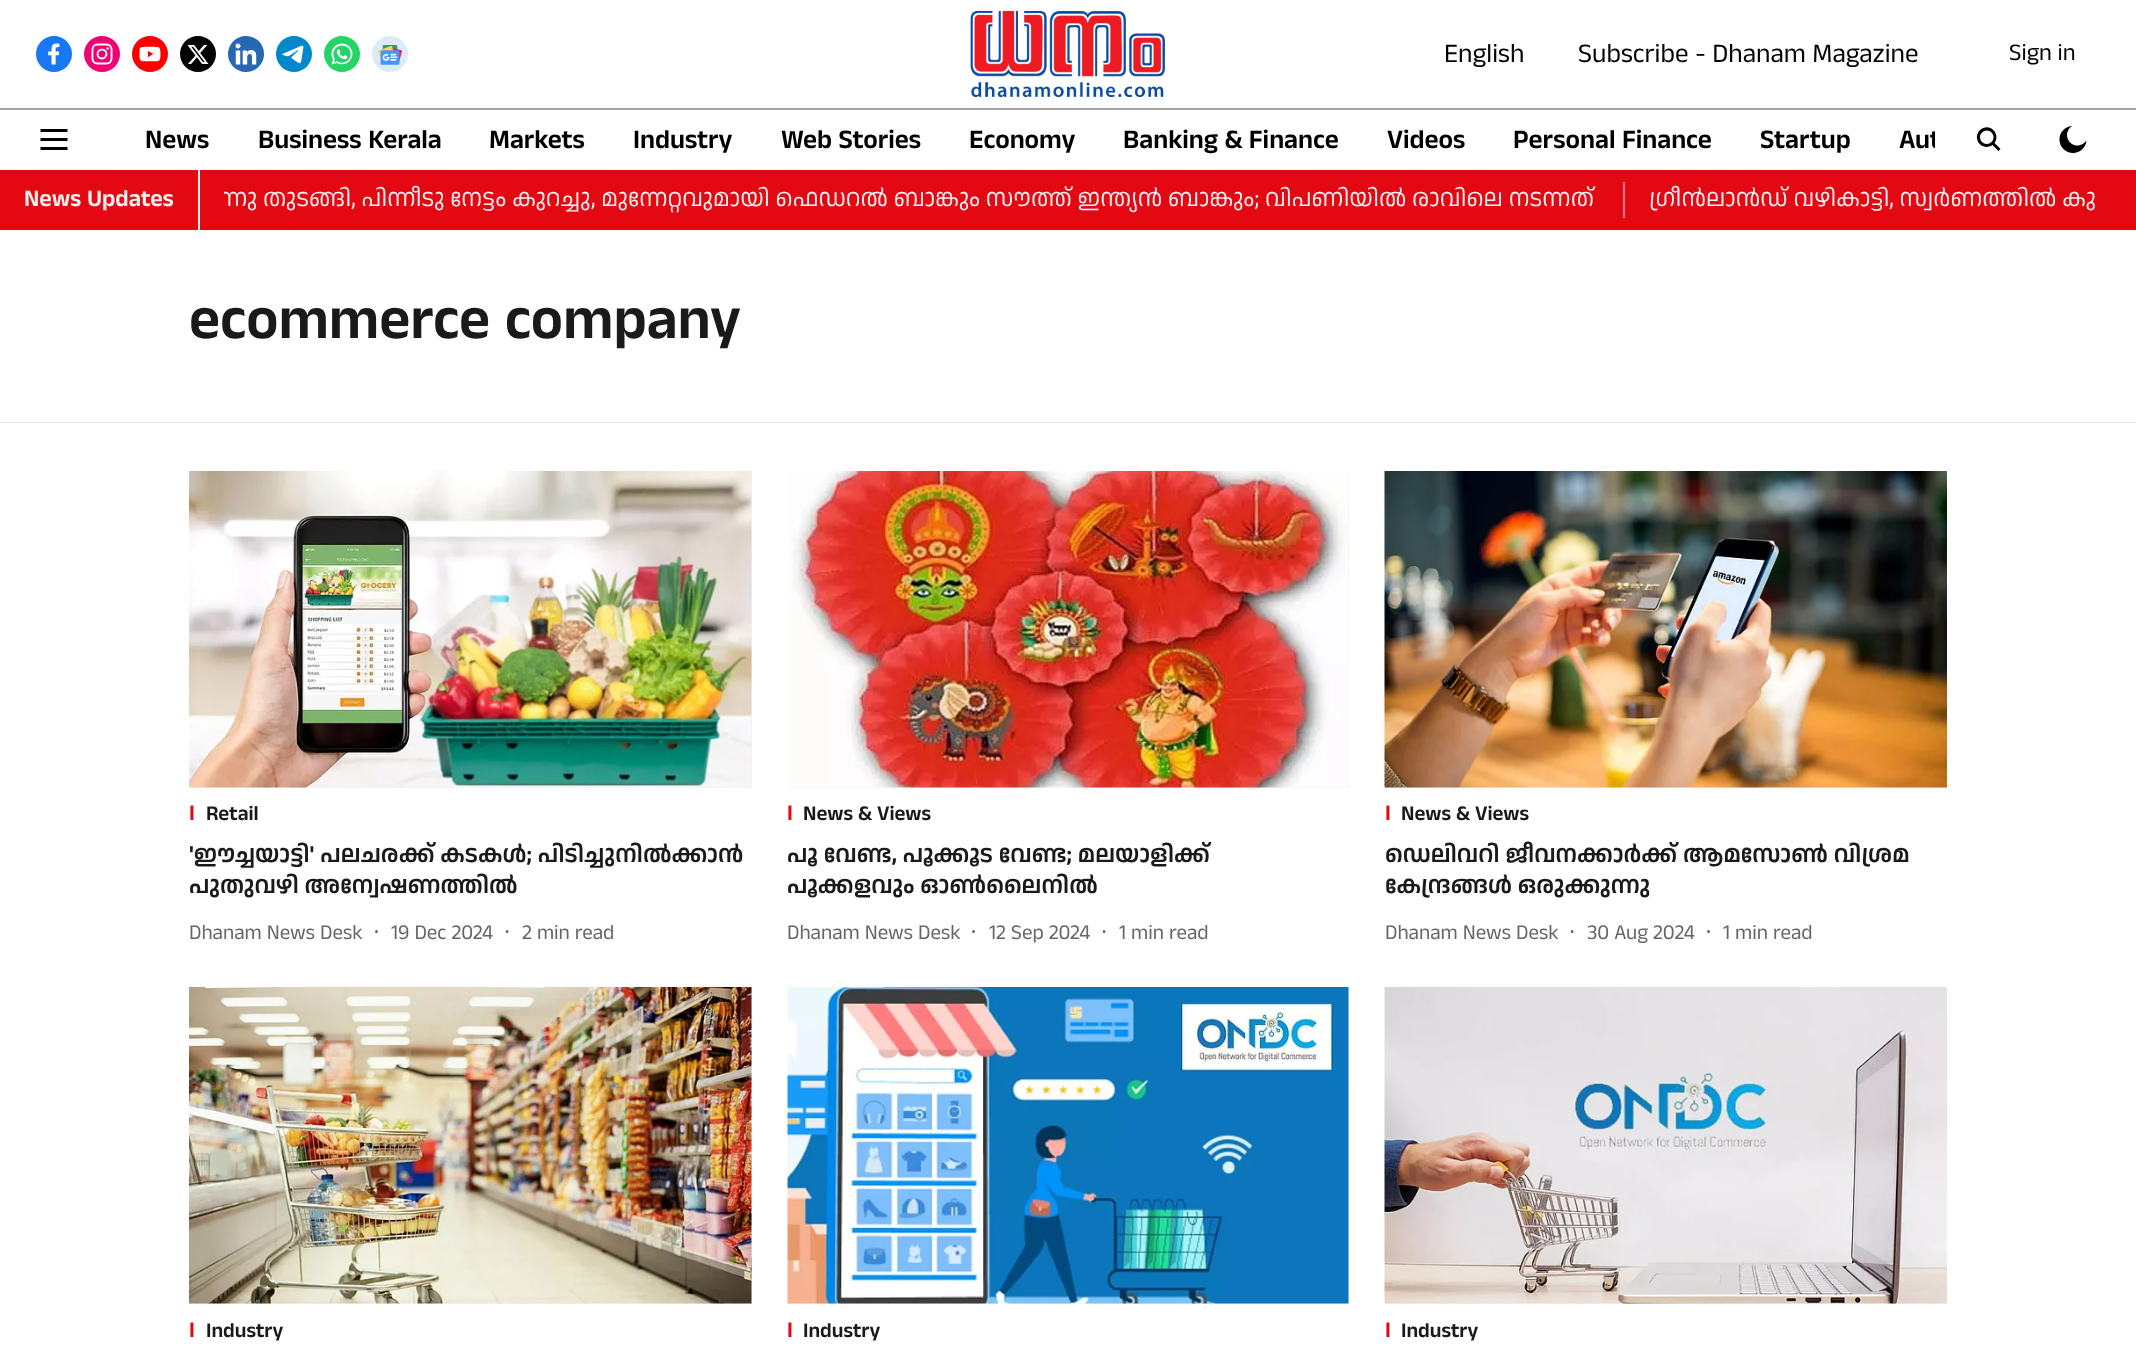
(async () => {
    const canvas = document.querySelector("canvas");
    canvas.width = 2136;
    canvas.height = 1347;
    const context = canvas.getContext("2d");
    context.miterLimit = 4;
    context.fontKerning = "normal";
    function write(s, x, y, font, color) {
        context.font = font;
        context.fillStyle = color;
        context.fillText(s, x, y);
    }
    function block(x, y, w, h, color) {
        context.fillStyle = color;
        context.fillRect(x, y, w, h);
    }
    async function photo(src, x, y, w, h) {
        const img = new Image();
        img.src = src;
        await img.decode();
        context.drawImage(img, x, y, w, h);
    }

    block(0, 0, 2136, 1347, "rgb(255, 255, 255)");
    block(0, 108, 2136, 2, "rgb(164, 164, 164)");
    await photo("media/1.png", 36, 36, 36, 36);
    await photo("media/2.png", 84, 36, 36, 36);
    await photo("media/3.png", 132, 36, 36, 36);
    await photo("media/4.png", 180, 36, 36, 36);
    await photo("media/5.png", 228, 36, 36, 36);
    await photo("media/6.png", 276, 36, 36, 36);
    await photo("media/7.png", 324, 36, 36, 36);
    await photo("media/8.png", 372, 36, 36, 36);
    await photo("media/9.png", 970, 10, 195, 88);
    write("English", 1444, 62, "27px Anek Malayalam", "rgb(0, 0, 0)");
    write("Subscribe - Dhanam Magazine", 1578, 62, "27px Anek Malayalam", "rgb(0, 0, 0)");
    write("Sign in", 2009, 60, "24px Anek Malayalam", "rgb(0, 0, 0)");
    await photo("media/10.png", 40, 129, 28, 21);
    write("News", 145, 148, "600 27px Anek Malayalam", "rgb(0, 0, 0)");
    write("Business Kerala", 258, 148, "600 27px Anek Malayalam", "rgb(0, 0, 0)");
    write("Markets", 489, 148, "600 27px Anek Malayalam", "rgb(0, 0, 0)");
    write("Industry", 633, 148, "600 27px Anek Malayalam", "rgb(0, 0, 0)");
    write("Web Stories", 781, 148, "600 27px Anek Malayalam", "rgb(0, 0, 0)");
    write("Economy", 969, 148, "600 27px Anek Malayalam", "rgb(0, 0, 0)");
    write("Banking & Finance", 1123, 148, "600 27px Anek Malayalam", "rgb(0, 0, 0)");
    write("Videos", 1387, 148, "600 27px Anek Malayalam", "rgb(0, 0, 0)");
    write("Personal Finance", 1513, 148, "600 27px Anek Malayalam", "rgb(0, 0, 0)");
    write("Startup", 1760, 148, "600 27px Anek Malayalam", "rgb(0, 0, 0)");
    context.save();
    context.beginPath();
    context.rect(122, 111, 1813, 59);
    context.clip();
    write("Aut", 1899, 148, "600 27px Anek Malayalam", "rgb(0, 0, 0)");
    context.restore();
    await photo("media/11.png", 1976, 127, 25, 24);
    await photo("media/12.png", 2059, 126, 28, 27);
    block(0, 170, 2136, 60, "rgb(228, 8, 19)");
    block(198, 170, 2, 60, "rgb(240, 240, 240)");
    write("News Updates", 24, 206, "600 24px Anek Malayalam", "rgb(240, 240, 240)");
    context.save();
    context.beginPath();
    context.rect(224, 182, 1888, 36);
    context.clip();
    write("ന്നു തുടങ്ങി, പിന്നീടു നേട്ടം കുറച്ചു, മുന്നേറ്റവുമായി ഫെഡറല്‍ ബാങ്കും സൗത്ത് ഇന്ത്യന്‍ ബാങ്കും; വിപണിയില്‍ രാവിലെ നടന്നത്", 219, 206, "24px Anek Malayalam", "rgb(240, 240, 240)");
    context.restore();
    block(1623, 182, 2, 36, "rgb(234, 124, 130)");
    write("ഗ്രീന്‍ലാന്‍ഡ് വഴികാട്ടി, സ്വര്‍ണത്തില്‍ കു", 1649, 206, "24px Anek Malayalam", "rgb(240, 240, 240)");
    block(0, 422, 2136, 1, "rgb(230, 230, 230)");
    write("ecommerce company", 189, 338, "600 60px Anek Malayalam", "rgb(26, 26, 26)");
    block(189, 471, 563, 317, "rgb(240, 240, 240)");
    await photo("media/13.png", 189, 471, 563, 317);
    write("I", 189, 820, "bold 21px Liberation Sans", "rgb(228, 8, 19)");
    write("Retail", 206, 820, "600 21px Anek Malayalam", "rgb(26, 26, 26)");
    write("'ഈച്ചയാട്ടി' പലചരക്ക് കടകള്‍; പിടിച്ചുനില്‍ക്കാന്‍", 189, 862, "600 24px Anek Malayalam", "rgb(26, 26, 26)");
    write("പുതുവഴി അന്വേഷണത്തില്‍", 189, 893, "600 24px Anek Malayalam", "rgb(26, 26, 26)");
    write("Dhanam News Desk", 189, 939, "21px Anek Malayalam", "rgb(102, 102, 102)");
    context.beginPath();
    context.arc(376.5, 931.5, 1.5, 0, Math.PI * 2);
    context.fill();
    write("19 Dec 2024", 391, 939, "21px Anek Malayalam", "rgb(102, 102, 102)");
    context.save();
    context.beginPath();
    context.rect(506, 930, 5, 5);
    context.clip();
    context.beginPath();
    context.arc(507, 931.5, 1.5, 0, Math.PI * 2);
    context.fill();
    context.restore();
    write("2 min read", 522, 939, "21px Anek Malayalam", "rgb(102, 102, 102)");
    block(788, 471, 561, 317, "rgb(240, 240, 240)");
    await photo("media/14.png", 788, 471, 561, 317);
    write("I", 787, 820, "bold 21px Liberation Sans", "rgb(228, 8, 19)");
    write("News & Views", 803, 820, "600 21px Anek Malayalam", "rgb(26, 26, 26)");
    write("പൂ വേണ്ട, പൂക്കൂട വേണ്ട; മലയാളിക്ക്", 787, 862, "600 24px Anek Malayalam", "rgb(26, 26, 26)");
    write("പൂക്കളവും ഓണ്‍ലൈനില്‍", 787, 893, "600 24px Anek Malayalam", "rgb(26, 26, 26)");
    write("Dhanam News Desk", 787, 939, "21px Anek Malayalam", "rgb(102, 102, 102)");
    context.beginPath();
    context.arc(973.5, 931.5, 1.5, 0, Math.PI * 2);
    context.fill();
    write("12 Sep 2024", 989, 939, "21px Anek Malayalam", "rgb(102, 102, 102)");
    context.save();
    context.beginPath();
    context.rect(1103, 930, 5, 5);
    context.clip();
    context.beginPath();
    context.arc(1104, 931.5, 1.5, 0, Math.PI * 2);
    context.fill();
    context.restore();
    write("1 min read", 1119, 939, "21px Anek Malayalam", "rgb(102, 102, 102)");
    block(1385, 787, 562, 1, "rgb(240, 240, 240)");
    await photo("media/15.png", 1384, 471, 563, 317);
    write("I", 1385, 820, "bold 21px Liberation Sans", "rgb(228, 8, 19)");
    write("News & Views", 1401, 820, "600 21px Anek Malayalam", "rgb(26, 26, 26)");
    write("ഡെലിവറി ജീവനക്കാർക്ക് ആമസോണ്‍ വിശ്രമ", 1385, 862, "600 24px Anek Malayalam", "rgb(26, 26, 26)");
    write("കേന്ദ്രങ്ങള്‍ ഒരുക്കുന്നു", 1385, 893, "600 24px Anek Malayalam", "rgb(26, 26, 26)");
    write("Dhanam News Desk", 1385, 939, "21px Anek Malayalam", "rgb(102, 102, 102)");
    context.save();
    context.beginPath();
    context.rect(1571, 930, 5, 5);
    context.clip();
    context.beginPath();
    context.arc(1572, 931.5, 1.5, 0, Math.PI * 2);
    context.fill();
    context.restore();
    write("30 Aug 2024", 1587, 939, "21px Anek Malayalam", "rgb(102, 102, 102)");
    context.beginPath();
    context.arc(1708.5, 931.5, 1.5, 0, Math.PI * 2);
    context.fill();
    write("1 min read", 1723, 939, "21px Anek Malayalam", "rgb(102, 102, 102)");
    block(189, 987, 563, 317, "rgb(240, 240, 240)");
    await photo("media/16.png", 189, 987, 563, 317);
    write("I", 189, 1337, "bold 21px Liberation Sans", "rgb(228, 8, 19)");
    write("Industry", 206, 1337, "600 21px Anek Malayalam", "rgb(26, 26, 26)");
    block(788, 987, 561, 317, "rgb(240, 240, 240)");
    await photo("media/17.png", 787, 987, 562, 317);
    write("I", 787, 1337, "bold 21px Liberation Sans", "rgb(228, 8, 19)");
    write("Industry", 803, 1337, "600 21px Anek Malayalam", "rgb(26, 26, 26)");
    block(1385, 1303, 562, 1, "rgb(240, 240, 240)");
    await photo("media/18.png", 1384, 987, 563, 317);
    write("I", 1385, 1337, "bold 21px Liberation Sans", "rgb(228, 8, 19)");
    write("Industry", 1401, 1337, "600 21px Anek Malayalam", "rgb(26, 26, 26)");
})();
